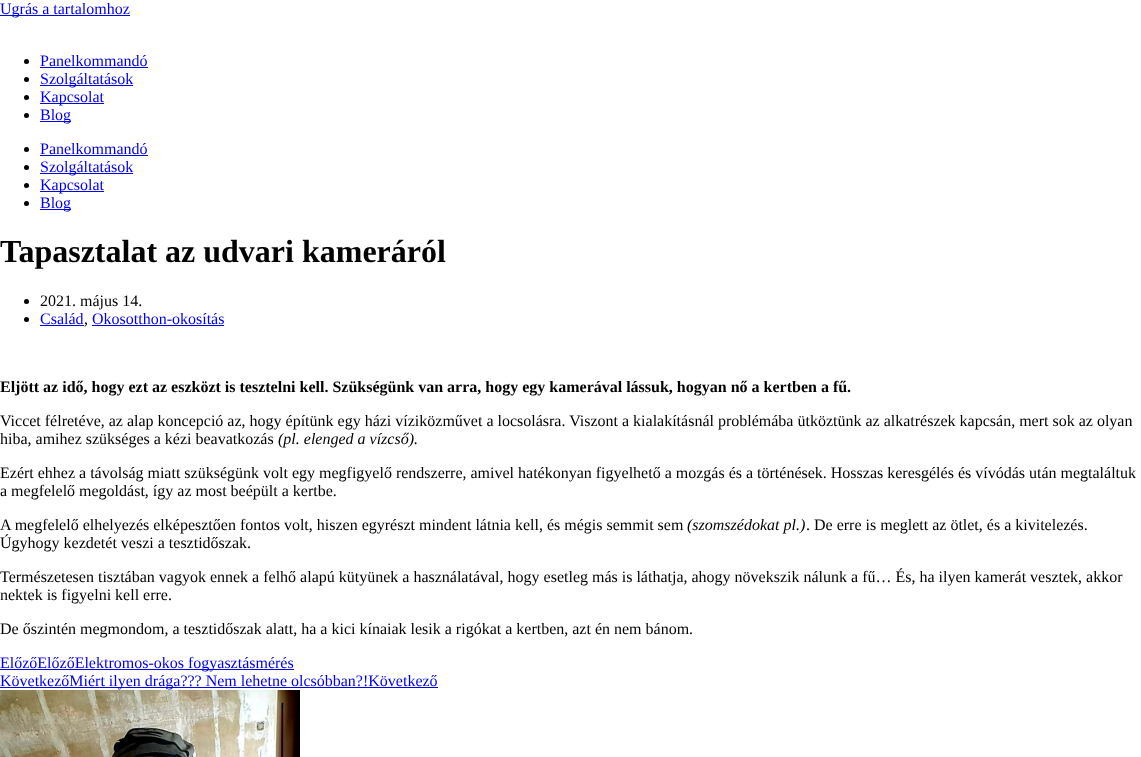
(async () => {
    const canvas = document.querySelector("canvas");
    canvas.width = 1141;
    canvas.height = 757;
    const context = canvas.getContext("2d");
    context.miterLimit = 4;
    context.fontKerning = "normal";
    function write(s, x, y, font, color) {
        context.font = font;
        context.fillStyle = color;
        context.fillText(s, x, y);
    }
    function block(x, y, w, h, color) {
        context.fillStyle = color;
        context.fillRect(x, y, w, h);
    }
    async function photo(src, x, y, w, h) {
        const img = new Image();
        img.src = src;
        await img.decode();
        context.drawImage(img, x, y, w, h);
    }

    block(0, 0, 1141, 757, "rgb(255, 255, 255)");
    block(0, 15, 130, 1, "rgb(0, 0, 238)");
    write("Ugrás a tartalomhoz", 0, 14, "16px Liberation Serif", "rgb(0, 0, 238)");
    context.fillStyle = "rgb(0, 0, 0)";
    context.beginPath();
    context.arc(26.5, 61.5, 2.5, 0, Math.PI * 2);
    context.fill();
    write("Panelkommandó", 40, 66, "16px Liberation Serif", "rgb(0, 0, 238)");
    block(40, 67, 108, 1, "rgb(0, 0, 238)");
    context.fillStyle = "rgb(0, 0, 0)";
    context.beginPath();
    context.arc(26.5, 79.5, 2.5, 0, Math.PI * 2);
    context.fill();
    block(40, 85, 93, 1, "rgb(0, 0, 238)");
    write("Szolgáltatások", 40, 84, "16px Liberation Serif", "rgb(0, 0, 238)");
    context.fillStyle = "rgb(0, 0, 0)";
    context.beginPath();
    context.arc(26.5, 97.5, 2.5, 0, Math.PI * 2);
    context.fill();
    block(40, 103, 64, 1, "rgb(0, 0, 238)");
    write("Kapcsolat", 40, 102, "16px Liberation Serif", "rgb(0, 0, 238)");
    context.fillStyle = "rgb(0, 0, 0)";
    context.beginPath();
    context.arc(26.5, 115.5, 2.5, 0, Math.PI * 2);
    context.fill();
    block(40, 121, 31, 1, "rgb(0, 0, 238)");
    write("Blog", 40, 120, "16px Liberation Serif", "rgb(0, 0, 238)");
    context.fillStyle = "rgb(0, 0, 0)";
    context.beginPath();
    context.arc(26.5, 149.5, 2.5, 0, Math.PI * 2);
    context.fill();
    write("Panelkommandó", 40, 154, "16px Liberation Serif", "rgb(0, 0, 238)");
    block(40, 155, 108, 1, "rgb(0, 0, 238)");
    context.fillStyle = "rgb(0, 0, 0)";
    context.beginPath();
    context.arc(26.5, 167.5, 2.5, 0, Math.PI * 2);
    context.fill();
    block(40, 173, 93, 1, "rgb(0, 0, 238)");
    write("Szolgáltatások", 40, 172, "16px Liberation Serif", "rgb(0, 0, 238)");
    context.fillStyle = "rgb(0, 0, 0)";
    context.beginPath();
    context.arc(26.5, 185.5, 2.5, 0, Math.PI * 2);
    context.fill();
    block(40, 191, 64, 1, "rgb(0, 0, 238)");
    write("Kapcsolat", 40, 190, "16px Liberation Serif", "rgb(0, 0, 238)");
    context.fillStyle = "rgb(0, 0, 0)";
    context.beginPath();
    context.arc(26.5, 203.5, 2.5, 0, Math.PI * 2);
    context.fill();
    block(40, 209, 31, 1, "rgb(0, 0, 238)");
    write("Blog", 40, 208, "16px Liberation Serif", "rgb(0, 0, 238)");
    write("Tapasztalat az udvari kameráról", 0, 262, "bold 32px Liberation Serif", "rgb(0, 0, 0)");
    context.beginPath();
    context.arc(26.5, 301.5, 2.5, 0, Math.PI * 2);
    context.fill();
    write("2021. május 14.", 40, 306, "16px Liberation Serif", "rgb(0, 0, 0)");
    context.beginPath();
    context.arc(26.5, 319.5, 2.5, 0, Math.PI * 2);
    context.fill();
    write("Család", 40, 324, "16px Liberation Serif", "rgb(0, 0, 238)");
    write("Okosotthon-okosítás", 92, 324, "16px Liberation Serif", "rgb(0, 0, 238)");
    write(",", 84, 324, "16px Liberation Serif", "rgb(0, 0, 0)");
    block(40, 325, 44, 1, "rgb(0, 0, 238)");
    block(92, 325, 132, 1, "rgb(0, 0, 238)");
    write("Eljött az idő, hogy ezt az eszközt is tesztelni kell. Szükségünk van arra, hogy egy kamerával lássuk, hogyan nő a kertben a fű.", 0, 392, "bold 16px Liberation Serif", "rgb(0, 0, 0)");
    write("Viccet félretéve, az alap koncepció az, hogy építünk egy házi víziközművet a locsolásra. Viszont a kialakításnál problémába ütköztünk az alkatrészek kapcsán, mert sok az olyan", 0, 426, "16px Liberation Serif", "rgb(0, 0, 0)");
    write("hiba, amihez szükséges a kézi beavatkozás", 0, 444, "16px Liberation Serif", "rgb(0, 0, 0)");
    write("(pl. elenged a vízcső).", 278, 444, "italic 16px Liberation Serif", "rgb(0, 0, 0)");
    write("Ezért ehhez a távolság miatt szükségünk volt egy megfigyelő rendszerre, amivel hatékonyan figyelhető a mozgás és a történések. Hosszas keresgélés és vívódás után megtaláltuk", 0, 478, "16px Liberation Serif", "rgb(0, 0, 0)");
    write("a megfelelő megoldást, így az most beépült a kertbe.", 0, 496, "16px Liberation Serif", "rgb(0, 0, 0)");
    write("A megfelelő elhelyezés elképesztően fontos volt, hiszen egyrészt mindent látnia kell, és mégis semmit sem", 0, 530, "16px Liberation Serif", "rgb(0, 0, 0)");
    write("(szomszédokat pl.)", 687, 530, "italic 16px Liberation Serif", "rgb(0, 0, 0)");
    write(". De erre is meglett az ötlet, és a kivitelezés.", 806, 530, "16px Liberation Serif", "rgb(0, 0, 0)");
    write("Úgyhogy kezdetét veszi a tesztidőszak.", 0, 548, "16px Liberation Serif", "rgb(0, 0, 0)");
    write("Természetesen tisztában vagyok ennek a felhő alapú kütyünek a használatával, hogy esetleg más is láthatja, ahogy növekszik nálunk a fű… És, ha ilyen kamerát vesztek, akkor", 0, 582, "16px Liberation Serif", "rgb(0, 0, 0)");
    write("nektek is figyelni kell erre.", 0, 600, "16px Liberation Serif", "rgb(0, 0, 0)");
    write("De őszintén megmondom, a tesztidőszak alatt, ha a kici kínaiak lesik a rigókat a kertben, azt én nem bánom.", 0, 634, "16px Liberation Serif", "rgb(0, 0, 0)");
    block(0, 669, 294, 1, "rgb(0, 0, 238)");
    write("ElőzőElőzőElektromos-okos fogyasztásmérés", 0, 668, "16px Liberation Serif", "rgb(0, 0, 238)");
    block(0, 687, 438, 1, "rgb(0, 0, 238)");
    write("KövetkezőMiért ilyen drága??? Nem lehetne olcsóbban?!Következő", 0, 686, "16px Liberation Serif", "rgb(0, 0, 238)");
    await photo("media/1.png", 0, 690, 300, 67);
})();
